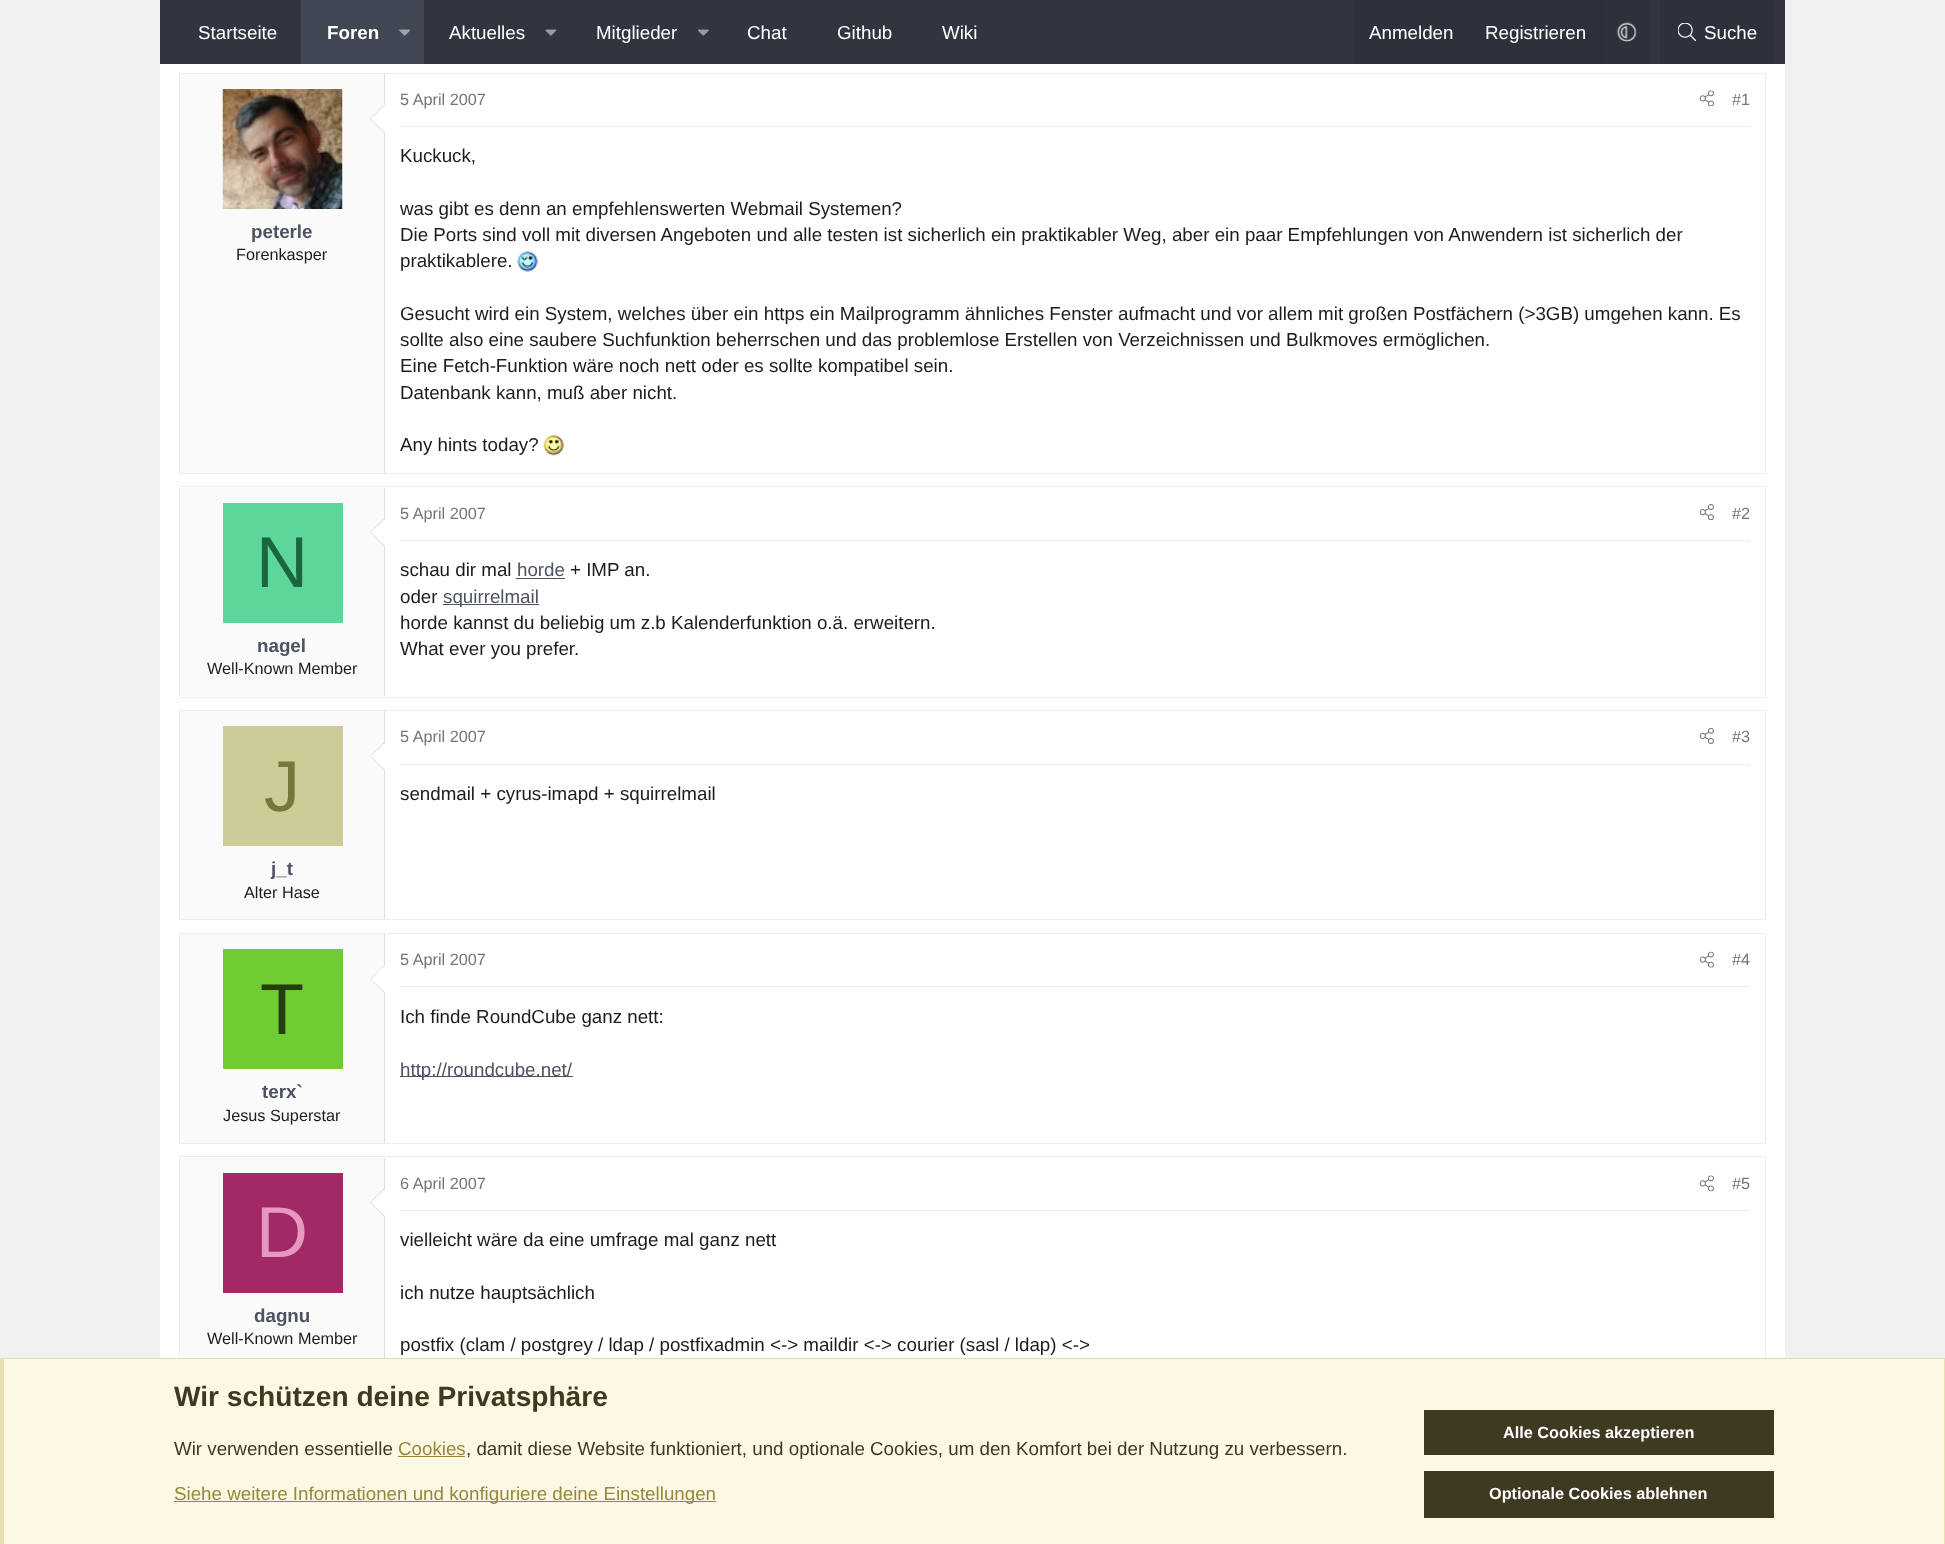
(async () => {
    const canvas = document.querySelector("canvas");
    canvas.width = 1945;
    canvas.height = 1544;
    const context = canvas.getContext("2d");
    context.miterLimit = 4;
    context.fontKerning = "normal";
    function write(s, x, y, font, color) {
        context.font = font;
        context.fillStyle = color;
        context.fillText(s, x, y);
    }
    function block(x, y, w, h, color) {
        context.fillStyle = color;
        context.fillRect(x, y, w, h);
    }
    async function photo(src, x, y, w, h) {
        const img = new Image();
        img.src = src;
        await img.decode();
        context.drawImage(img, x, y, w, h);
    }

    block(0, 0, 1945, 1544, "rgb(240, 240, 240)");
    block(160, 0, 1625, 64, "rgb(48, 53, 64)");
    write("Startseite", 198, 39, "18.75px Liberation Sans", "rgb(255, 255, 255)");
    block(301, 0, 123, 64, "rgb(65, 70, 83)");
    write("Foren", 327, 39, "bold 18.75px Liberation Sans", "rgb(255, 255, 255)");
    await photo("media/1.png", 399, 29, 11, 7);
    write("Aktuelles", 449, 39, "18.75px Liberation Sans", "rgb(255, 255, 255)");
    await photo("media/2.png", 545, 29, 12, 7);
    write("Mitglieder", 596, 39, "18.75px Liberation Sans", "rgb(255, 255, 255)");
    await photo("media/3.png", 698, 29, 11, 7);
    write("Chat", 747, 39, "18.75px Liberation Sans", "rgb(255, 255, 255)");
    write("Github", 837, 39, "18.75px Liberation Sans", "rgb(255, 255, 255)");
    write("Wiki", 942, 39, "18.75px Liberation Sans", "rgb(255, 255, 255)");
    block(1354, 0, 297, 64, "rgb(45, 49, 59)");
    write("Anmelden", 1369, 39, "18.75px Liberation Sans", "rgb(255, 255, 255)");
    block(1469, 0, 1, 64, "rgb(42, 46, 54)");
    write("Registrieren", 1485, 39, "18.75px Liberation Sans", "rgb(255, 255, 255)");
    block(1601, 0, 1, 64, "rgb(42, 46, 54)");
    await photo("media/4.png", 1617, 22, 20, 20);
    block(1660, 0, 113, 64, "rgb(45, 49, 59)");
    await photo("media/5.png", 1678, 23, 18, 18);
    write("Suche", 1704, 39, "18.75px Liberation Sans", "rgb(255, 255, 255)");
    block(160, 64, 1625, 1294, "rgb(255, 255, 255)");
    context.strokeStyle = "rgb(237, 237, 237)";
    context.strokeRect(179.5, 73.5, 1586, 400);
    block(180, 74, 204, 399, "rgb(250, 250, 250)");
    block(384, 74, 1, 399, "rgb(222, 222, 222)");
    block(342, 89, 1, 120, "rgb(255, 255, 255)");
    await photo("media/6.png", 222, 89, 121, 120);
    context.fillStyle = "rgb(222, 222, 222)";
    context.beginPath();
    context.moveTo(385, 104);
    context.lineTo(385, 134);
    context.lineTo(370, 119);
    context.closePath();
    context.fill();
    context.fillStyle = "rgb(255, 255, 255)";
    context.beginPath();
    context.moveTo(385, 105);
    context.lineTo(385, 132.5);
    context.lineTo(371, 119);
    context.closePath();
    context.fill();
    write("peterle", 251, 238, "bold 18.75px Liberation Sans", "rgb(76, 83, 97)");
    write("Forenkasper", 236, 260, "16.25px Liberation Sans", "rgb(28, 28, 28)");
    block(400, 126, 1350, 1, "rgb(237, 237, 237)");
    write("5 April 2007", 400, 105, "16.25px Liberation Sans", "rgb(117, 117, 117)");
    await photo("media/7.png", 1699, 90, 15, 17);
    write("#1", 1732, 105, "16.25px Liberation Sans", "rgb(117, 117, 117)");
    write("Kuckuck,", 400, 162, "18.75px Liberation Sans", "rgb(28, 28, 28)");
    write("was gibt es denn an empfehlenswerten Webmail Systemen?", 400, 215, "18.75px Liberation Sans", "rgb(28, 28, 28)");
    write("Die Ports sind voll mit diversen Angeboten und alle testen ist sicherlich ein praktikabler Weg, aber ein paar Empfehlungen von Anwendern ist sicherlich der", 400, 241, "18.75px Liberation Sans", "rgb(28, 28, 28)");
    write("praktikablere.", 400, 267, "18.75px Liberation Sans", "rgb(28, 28, 28)");
    await photo("media/8.png", 517, 251, 21, 21);
    write("Gesucht wird ein System, welches über ein https ein Mailprogramm ähnliches Fenster aufmacht und vor allem mit großen Postfächern (>3GB) umgehen kann. Es", 400, 320, "18.75px Liberation Sans", "rgb(28, 28, 28)");
    write("sollte also eine saubere Suchfunktion beherrschen und das problemlose Erstellen von Verzeichnissen und Bulkmoves ermöglichen.", 400, 346, "18.75px Liberation Sans", "rgb(28, 28, 28)");
    write("Eine Fetch-Funktion wäre noch nett oder es sollte kompatibel sein.", 400, 372, "18.75px Liberation Sans", "rgb(28, 28, 28)");
    write("Datenbank kann, muß aber nicht.", 400, 399, "18.75px Liberation Sans", "rgb(28, 28, 28)");
    write("Any hints today?", 400, 451, "18.75px Liberation Sans", "rgb(28, 28, 28)");
    await photo("media/9.png", 543, 435, 21, 21);
    context.strokeRect(179.5, 486.5, 1586, 211);
    block(180, 488, 204, 208, "rgb(250, 250, 250)");
    block(384, 488, 1, 208, "rgb(222, 222, 222)");
    context.beginPath();
    context.moveTo(385, 517.5);
    context.lineTo(385, 547.5);
    context.lineTo(370, 532.5);
    context.closePath();
    context.fill();
    context.fillStyle = "rgb(255, 255, 255)";
    context.beginPath();
    context.moveTo(385, 519);
    context.lineTo(385, 546);
    context.lineTo(371, 532.5);
    context.closePath();
    context.fill();
    block(223, 503, 120, 120, "rgb(92, 214, 153)");
    write("N", 256, 587, "72px Liberation Sans", "rgb(26, 102, 64)");
    write("nagel", 257, 652, "bold 18.75px Liberation Sans", "rgb(76, 83, 97)");
    write("Well-Known Member", 207, 674, "16.25px Liberation Sans", "rgb(28, 28, 28)");
    block(400, 540, 1350, 1, "rgb(237, 237, 237)");
    write("5 April 2007", 400, 519, "16.25px Liberation Sans", "rgb(117, 117, 117)");
    await photo("media/10.png", 1699, 504, 15, 16);
    write("#2", 1732, 519, "16.25px Liberation Sans", "rgb(117, 117, 117)");
    write("schau dir mal", 400, 576, "18.75px Liberation Sans", "rgb(28, 28, 28)");
    write("horde", 517, 576, "18.75px Liberation Sans", "rgb(76, 83, 97)");
    block(516, 578, 49, 1, "rgb(76, 83, 97)");
    write("+ IMP an.", 570, 576, "18.75px Liberation Sans", "rgb(28, 28, 28)");
    write("oder", 400, 603, "18.75px Liberation Sans", "rgb(28, 28, 28)");
    block(443, 604, 96, 1, "rgb(76, 83, 97)");
    write("squirrelmail", 443, 603, "18.75px Liberation Sans", "rgb(76, 83, 97)");
    write("horde kannst du beliebig um z.b Kalenderfunktion o.ä. erweitern.", 400, 629, "18.75px Liberation Sans", "rgb(28, 28, 28)");
    write("What ever you prefer.", 400, 655, "18.75px Liberation Sans", "rgb(28, 28, 28)");
    context.strokeRect(179.5, 710.5, 1586, 209);
    block(180, 711, 204, 208, "rgb(250, 250, 250)");
    block(384, 711, 1, 208, "rgb(222, 222, 222)");
    context.beginPath();
    context.moveTo(385, 741);
    context.lineTo(385, 771);
    context.lineTo(370, 756);
    context.closePath();
    context.fill();
    context.fillStyle = "rgb(255, 255, 255)";
    context.beginPath();
    context.moveTo(385, 742.5);
    context.lineTo(385, 770);
    context.lineTo(371, 756);
    context.closePath();
    context.fill();
    block(223, 726, 120, 120, "rgb(204, 204, 153)");
    write("J", 264, 811, "72px Liberation Sans", "rgb(119, 119, 60)");
    write("j_t", 271, 875, "bold 18.75px Liberation Sans", "rgb(76, 83, 97)");
    write("Alter Hase", 244, 898, "16.25px Liberation Sans", "rgb(28, 28, 28)");
    block(400, 764, 1350, 1, "rgb(237, 237, 237)");
    write("5 April 2007", 400, 742, "16.25px Liberation Sans", "rgb(117, 117, 117)");
    await photo("media/11.png", 1699, 728, 15, 16);
    write("#3", 1732, 742, "16.25px Liberation Sans", "rgb(117, 117, 117)");
    write("sendmail + cyrus-imapd + squirrelmail", 400, 800, "18.75px Liberation Sans", "rgb(28, 28, 28)");
    context.strokeRect(179.5, 933.5, 1586, 210);
    block(180, 934, 204, 209, "rgb(250, 250, 250)");
    block(384, 934, 1, 209, "rgb(222, 222, 222)");
    context.beginPath();
    context.moveTo(385, 964);
    context.lineTo(385, 994);
    context.lineTo(370, 979);
    context.closePath();
    context.fill();
    context.fillStyle = "rgb(255, 255, 255)";
    context.beginPath();
    context.moveTo(385, 965);
    context.lineTo(385, 992.5);
    context.lineTo(371, 979);
    context.closePath();
    context.fill();
    block(223, 949, 120, 120, "rgb(112, 204, 51)");
    write("T", 260, 1034, "72px Liberation Sans", "rgb(34, 61, 15)");
    write("terx`", 262, 1098, "bold 18.75px Liberation Sans", "rgb(76, 83, 97)");
    write("Jesus Superstar", 223, 1121, "16.25px Liberation Sans", "rgb(28, 28, 28)");
    block(400, 986, 1350, 1, "rgb(237, 237, 237)");
    write("5 April 2007", 400, 965, "16.25px Liberation Sans", "rgb(117, 117, 117)");
    await photo("media/12.png", 1699, 951, 15, 17);
    write("#4", 1732, 965, "16.25px Liberation Sans", "rgb(117, 117, 117)");
    write("Ich finde RoundCube ganz nett:", 400, 1023, "18.75px Liberation Sans", "rgb(28, 28, 28)");
    block(400, 1076, 173, 1, "rgb(76, 83, 97)");
    write("http://roundcube.net/", 400, 1076, "18.75px Liberation Sans", "rgb(76, 83, 97)");
    context.strokeRect(179.5, 1156.5, 1586, 272);
    block(180, 1158, 204, 200, "rgb(250, 250, 250)");
    block(384, 1158, 1, 200, "rgb(222, 222, 222)");
    context.beginPath();
    context.moveTo(385, 1187.5);
    context.lineTo(385, 1217.5);
    context.lineTo(370, 1202.5);
    context.closePath();
    context.fill();
    context.fillStyle = "rgb(255, 255, 255)";
    context.beginPath();
    context.moveTo(385, 1189);
    context.lineTo(385, 1216);
    context.lineTo(371, 1202.5);
    context.closePath();
    context.fill();
    block(223, 1173, 120, 120, "rgb(163, 41, 102)");
    write("D", 256, 1257, "72px Liberation Sans", "rgb(230, 153, 191)");
    write("dagnu", 254, 1322, "bold 18.75px Liberation Sans", "rgb(76, 83, 97)");
    write("Well-Known Member", 207, 1344, "16.25px Liberation Sans", "rgb(28, 28, 28)");
    block(400, 1210, 1350, 1, "rgb(237, 237, 237)");
    write("6 April 2007", 400, 1189, "16.25px Liberation Sans", "rgb(117, 117, 117)");
    await photo("media/7.png", 1699, 1175, 15, 17);
    write("#5", 1732, 1189, "16.25px Liberation Sans", "rgb(117, 117, 117)");
    write("vielleicht wäre da eine umfrage mal ganz nett", 400, 1246, "18.75px Liberation Sans", "rgb(28, 28, 28)");
    write("ich nutze hauptsächlich", 400, 1299, "18.75px Liberation Sans", "rgb(28, 28, 28)");
    write("postfix (clam / postgrey / ldap / postfixadmin <-> maildir <-> courier (sasl / ldap) <->", 400, 1351, "18.75px Liberation Sans", "rgb(28, 28, 28)");
    block(4, 1359, 1940, 185, "rgb(252, 248, 227)");
    block(0, 1358, 1945, 1, "rgb(231, 222, 177)");
    block(1944, 1358, 1, 186, "rgb(231, 222, 177)");
    block(0, 1358, 4, 186, "rgb(231, 222, 177)");
    write("Wir schützen deine Privatsphäre", 174, 1406, "bold 28.1px Liberation Sans", "rgb(63, 57, 34)");
    write("Wir verwenden essentielle", 174, 1455, "18.75px Liberation Sans", "rgb(63, 57, 34)");
    write("Cookies", 398, 1455, "18.75px Liberation Sans", "rgb(153, 136, 59)");
    block(398, 1456, 67, 1, "rgb(153, 136, 59)");
    write(", damit diese Website funktioniert, und optionale Cookies, um den Komfort bei der Nutzung zu verbessern.", 466, 1455, "18.75px Liberation Sans", "rgb(63, 57, 34)");
    block(174, 1501, 542, 1, "rgb(153, 136, 59)");
    write("Siehe weitere Informationen und konfiguriere deine Einstellungen", 174, 1500, "18.75px Liberation Sans", "rgb(153, 136, 59)");
    block(1424, 1410, 350, 45, "rgb(63, 57, 34)");
    write("Alle Cookies akzeptieren", 1503, 1438, "bold 16.25px Liberation Sans", "rgb(255, 255, 255)");
    block(1424, 1471, 350, 47, "rgb(63, 57, 34)");
    write("Optionale Cookies ablehnen", 1489, 1499, "bold 16.25px Liberation Sans", "rgb(255, 255, 255)");
})();
